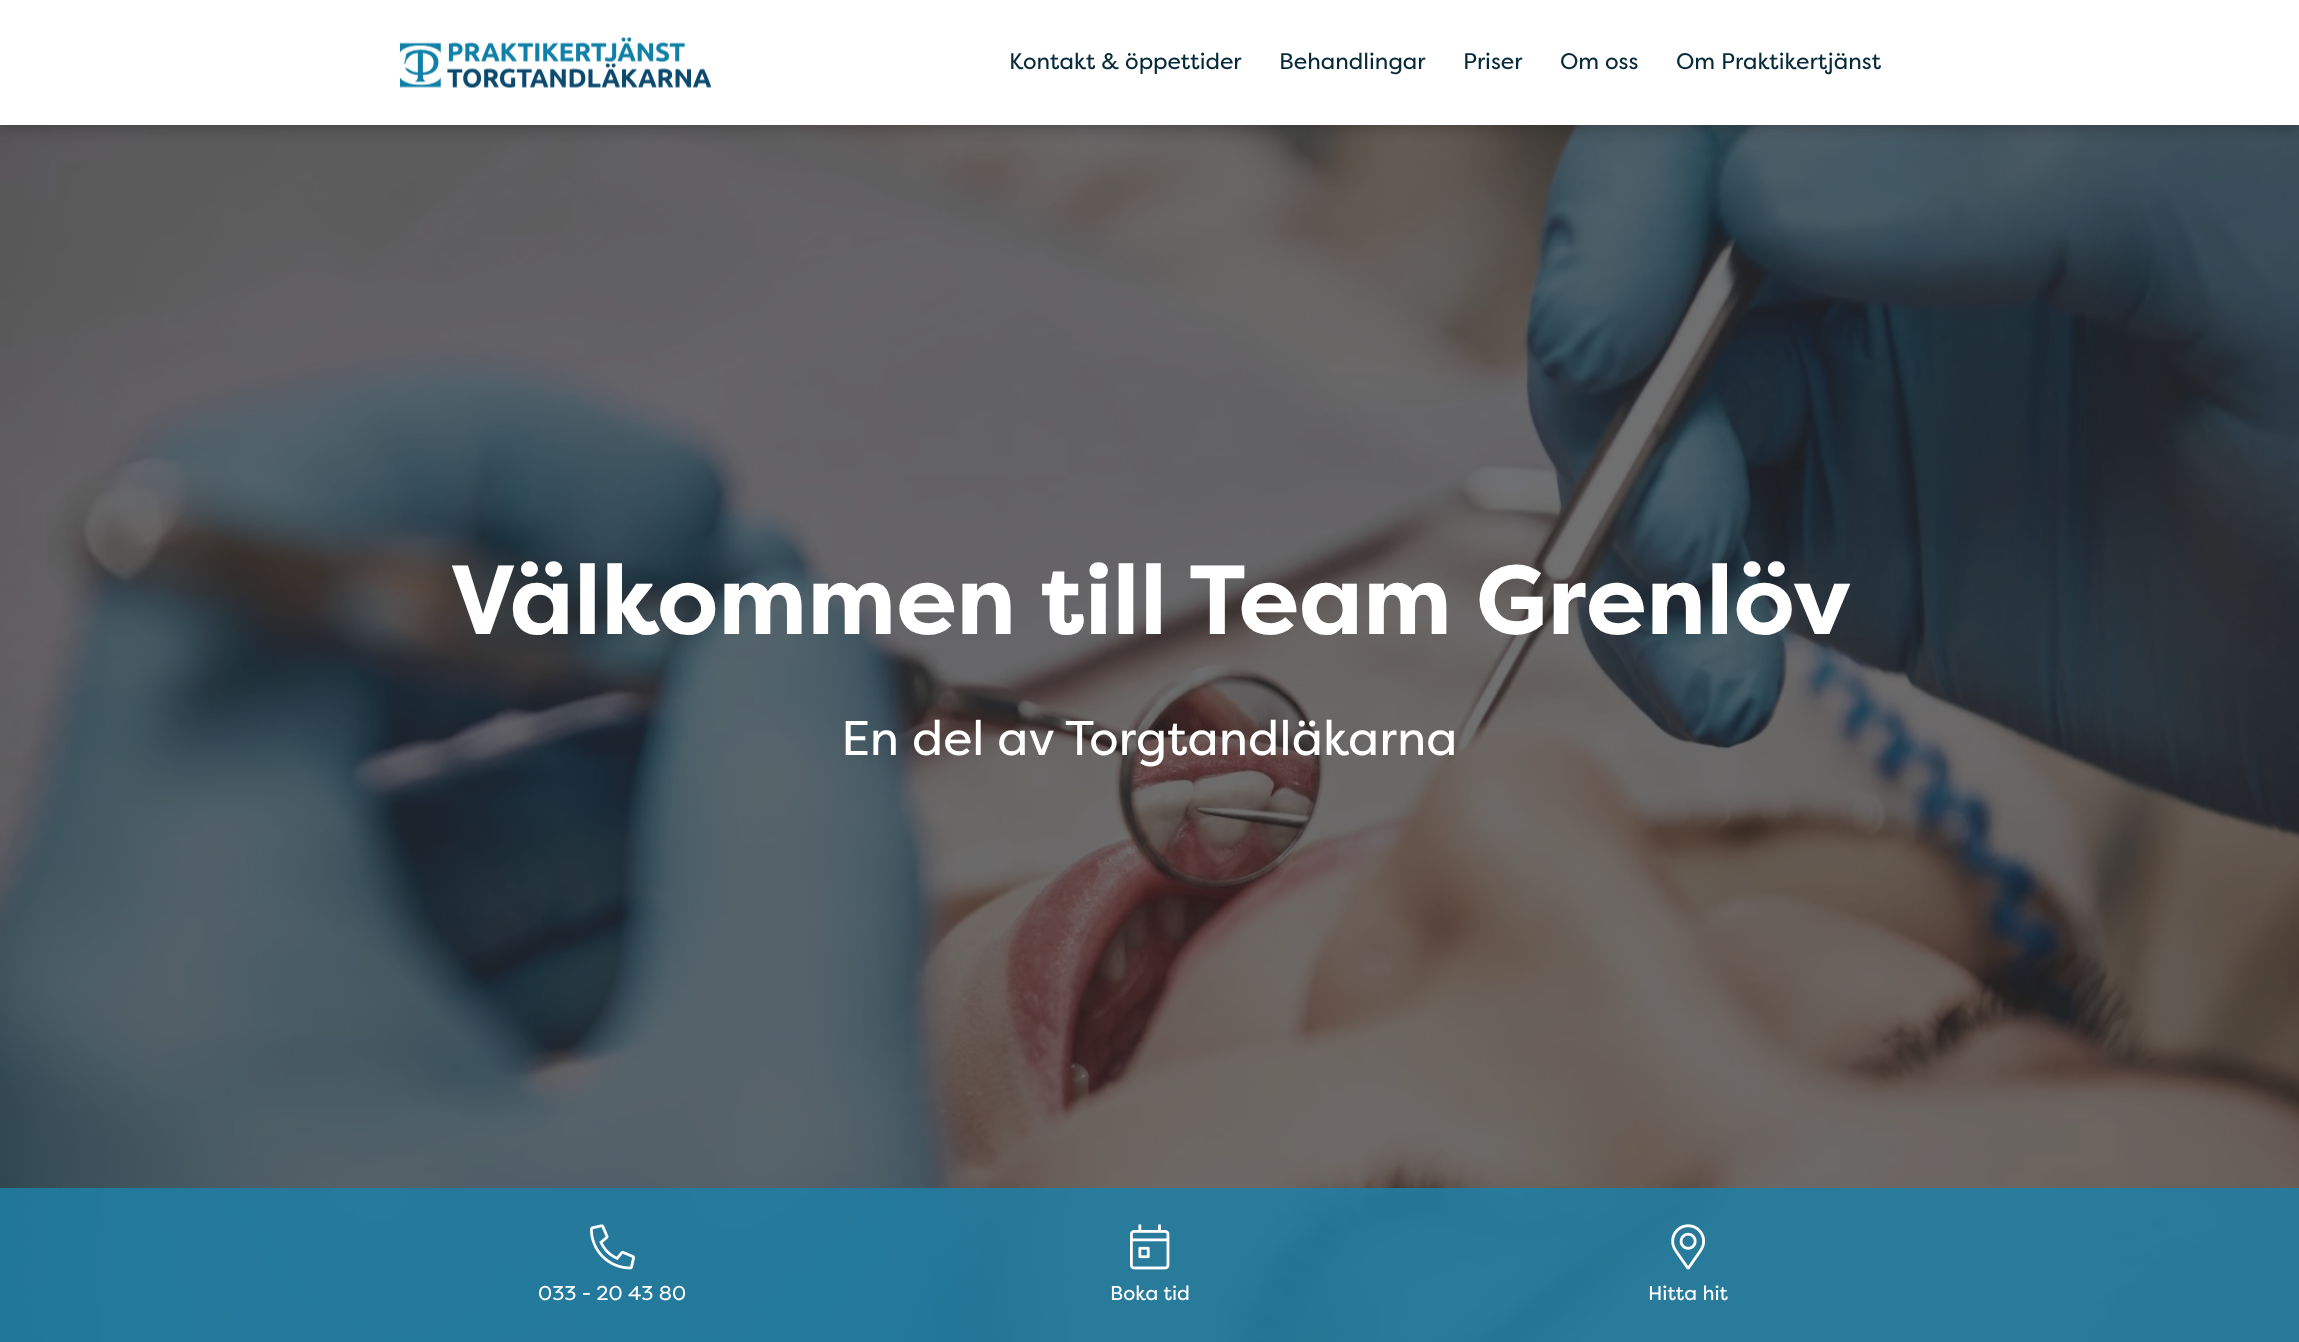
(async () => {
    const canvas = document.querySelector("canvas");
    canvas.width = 2299;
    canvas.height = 1342;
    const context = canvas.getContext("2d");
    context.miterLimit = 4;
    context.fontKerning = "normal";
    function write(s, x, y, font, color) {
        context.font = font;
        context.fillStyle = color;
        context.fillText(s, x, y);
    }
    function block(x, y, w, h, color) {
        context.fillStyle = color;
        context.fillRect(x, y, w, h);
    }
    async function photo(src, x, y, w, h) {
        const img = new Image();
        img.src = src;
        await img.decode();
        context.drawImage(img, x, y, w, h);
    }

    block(0, 0, 2299, 1342, "rgb(255, 255, 255)");
    await photo("media/2.png", 0, 125, 2299, 1217);
    context.save();
    context.beginPath();
    context.rect(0, 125, 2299, 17);
    context.clip();
    context.fillStyle = "rgba(32, 32, 32, 0.5)";
    context.filter = "blur(9.5px)";
    context.beginPath();
    context.rect(0, 0, 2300, 125);
    context.fill();
    context.filter = "none";
    context.restore();
    await photo("media/1.png", 400, 37, 311, 51);
    write("Kontakt & öppettider", 1009, 69, "500 22.5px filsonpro", "rgb(7, 42, 58)");
    write("Behandlingar", 1279, 69, "500 22.5px filsonpro", "rgb(7, 42, 58)");
    write("Priser", 1463, 69, "500 22.5px filsonpro", "rgb(7, 42, 58)");
    write("Om oss", 1560, 69, "500 22.5px filsonpro", "rgb(7, 42, 58)");
    write("Om Praktikertjänst", 1676, 69, "500 22.5px filsonpro", "rgb(7, 42, 58)");
    write("Välkommen till Team Grenlöv", 450, 634, "bold 97.75px filsonpro", "rgb(255, 255, 255)");
    write("En del av Torgtandläkarna", 841, 755, "500 48.6px filsonpro", "rgb(255, 255, 255)");
    block(0, 1188, 2299, 154, "rgba(31, 126, 164, 0.87)");
    await photo("media/3.png", 590, 1224, 45, 46);
    write("033 - 20 43 80", 538, 1300, "500 20px filsonpro", "rgb(255, 255, 255)");
    await photo("media/4.png", 1130, 1224, 40, 46);
    write("Boka tid", 1110, 1300, "500 20px filsonpro", "rgb(255, 255, 255)");
    await photo("media/5.png", 1671, 1224, 34, 46);
    write("Hitta hit", 1648, 1300, "500 20px filsonpro", "rgb(255, 255, 255)");
})();
